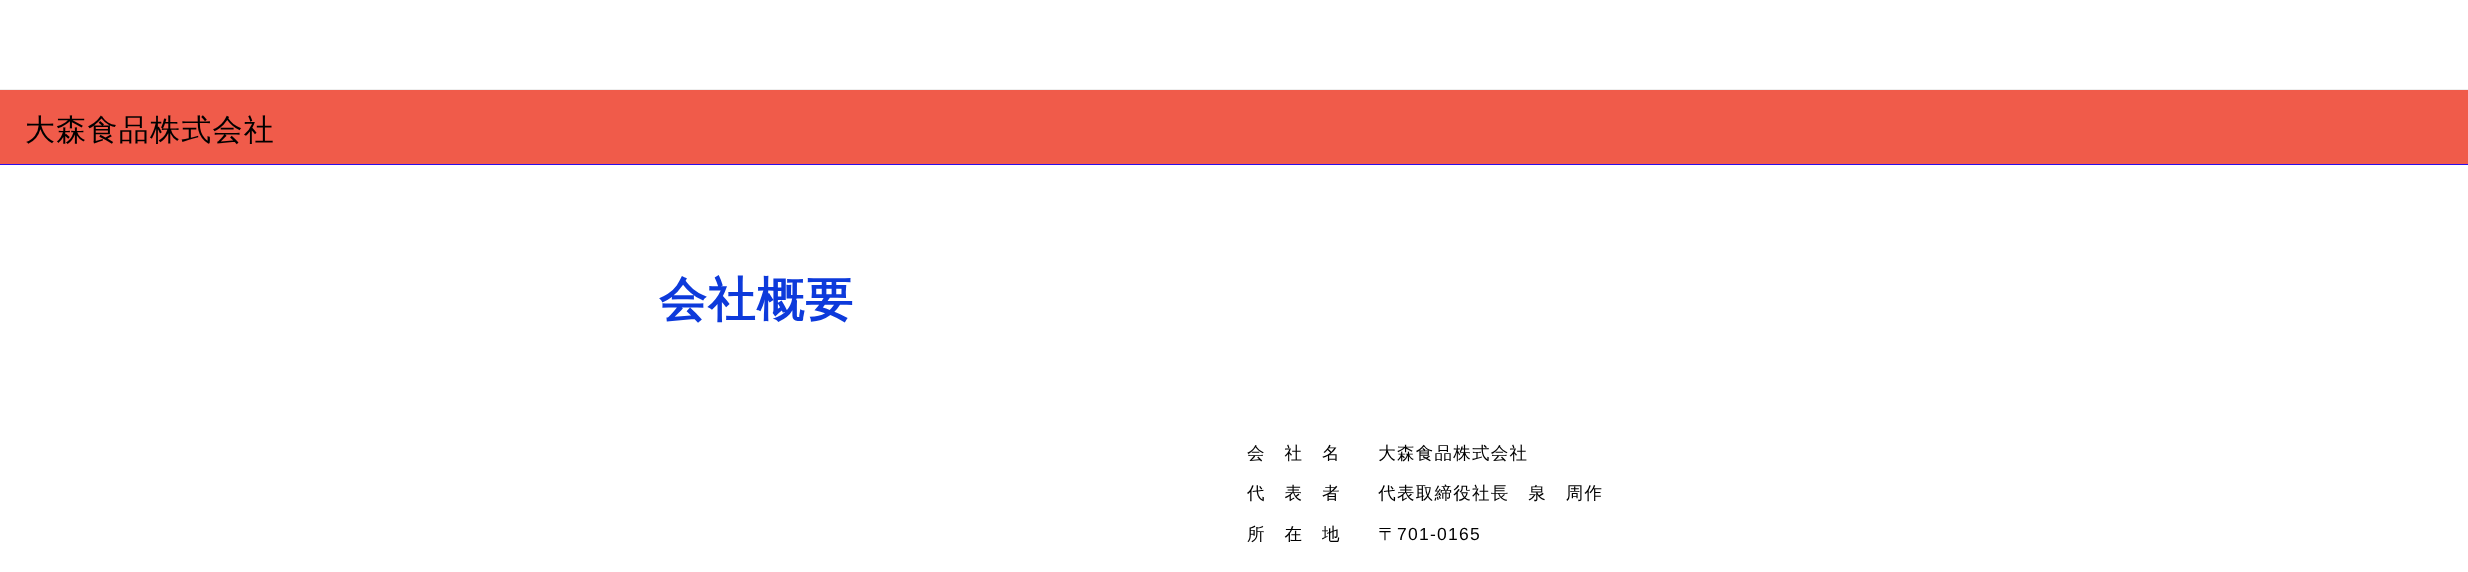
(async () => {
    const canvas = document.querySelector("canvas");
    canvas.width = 2468;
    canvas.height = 572;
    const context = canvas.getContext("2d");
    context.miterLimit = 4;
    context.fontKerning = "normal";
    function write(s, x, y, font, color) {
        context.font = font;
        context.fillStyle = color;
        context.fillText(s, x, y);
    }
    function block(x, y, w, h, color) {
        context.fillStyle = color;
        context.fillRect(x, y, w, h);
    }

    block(0, 0, 2468, 572, "rgb(255, 255, 255)");
    block(0, 89, 2468, 1, "rgb(238, 238, 238)");
    block(0, 90, 2468, 74, "rgb(240, 91, 74)");
    block(0, 164, 2468, 1, "rgb(45, 12, 235)");
    context.letterSpacing = "1.25px";
    write("大森食品株式会社", 25, 140, "500 30px WenQuanYi Zen Hei", "rgb(0, 0, 0)");
    write("会社概要", 659, 316, "bold 47.5px WenQuanYi Zen Hei", "rgb(13, 58, 219)");
    write("会　社　名　　大森食品株式会社", 1247, 459, "500 17.5px WenQuanYi Zen Hei", "rgb(0, 0, 0)");
    write("代　表　者　　代表取締役社長　泉　周作", 1247, 499, "500 17.5px WenQuanYi Zen Hei", "rgb(0, 0, 0)");
    write("所　在　地　　〒", 1247, 540, "500 17.5px WenQuanYi Zen Hei", "rgb(0, 0, 0)");
    write("701-0165", 1397, 540, "17.5px Liberation Sans", "rgb(0, 0, 0)");
})();
